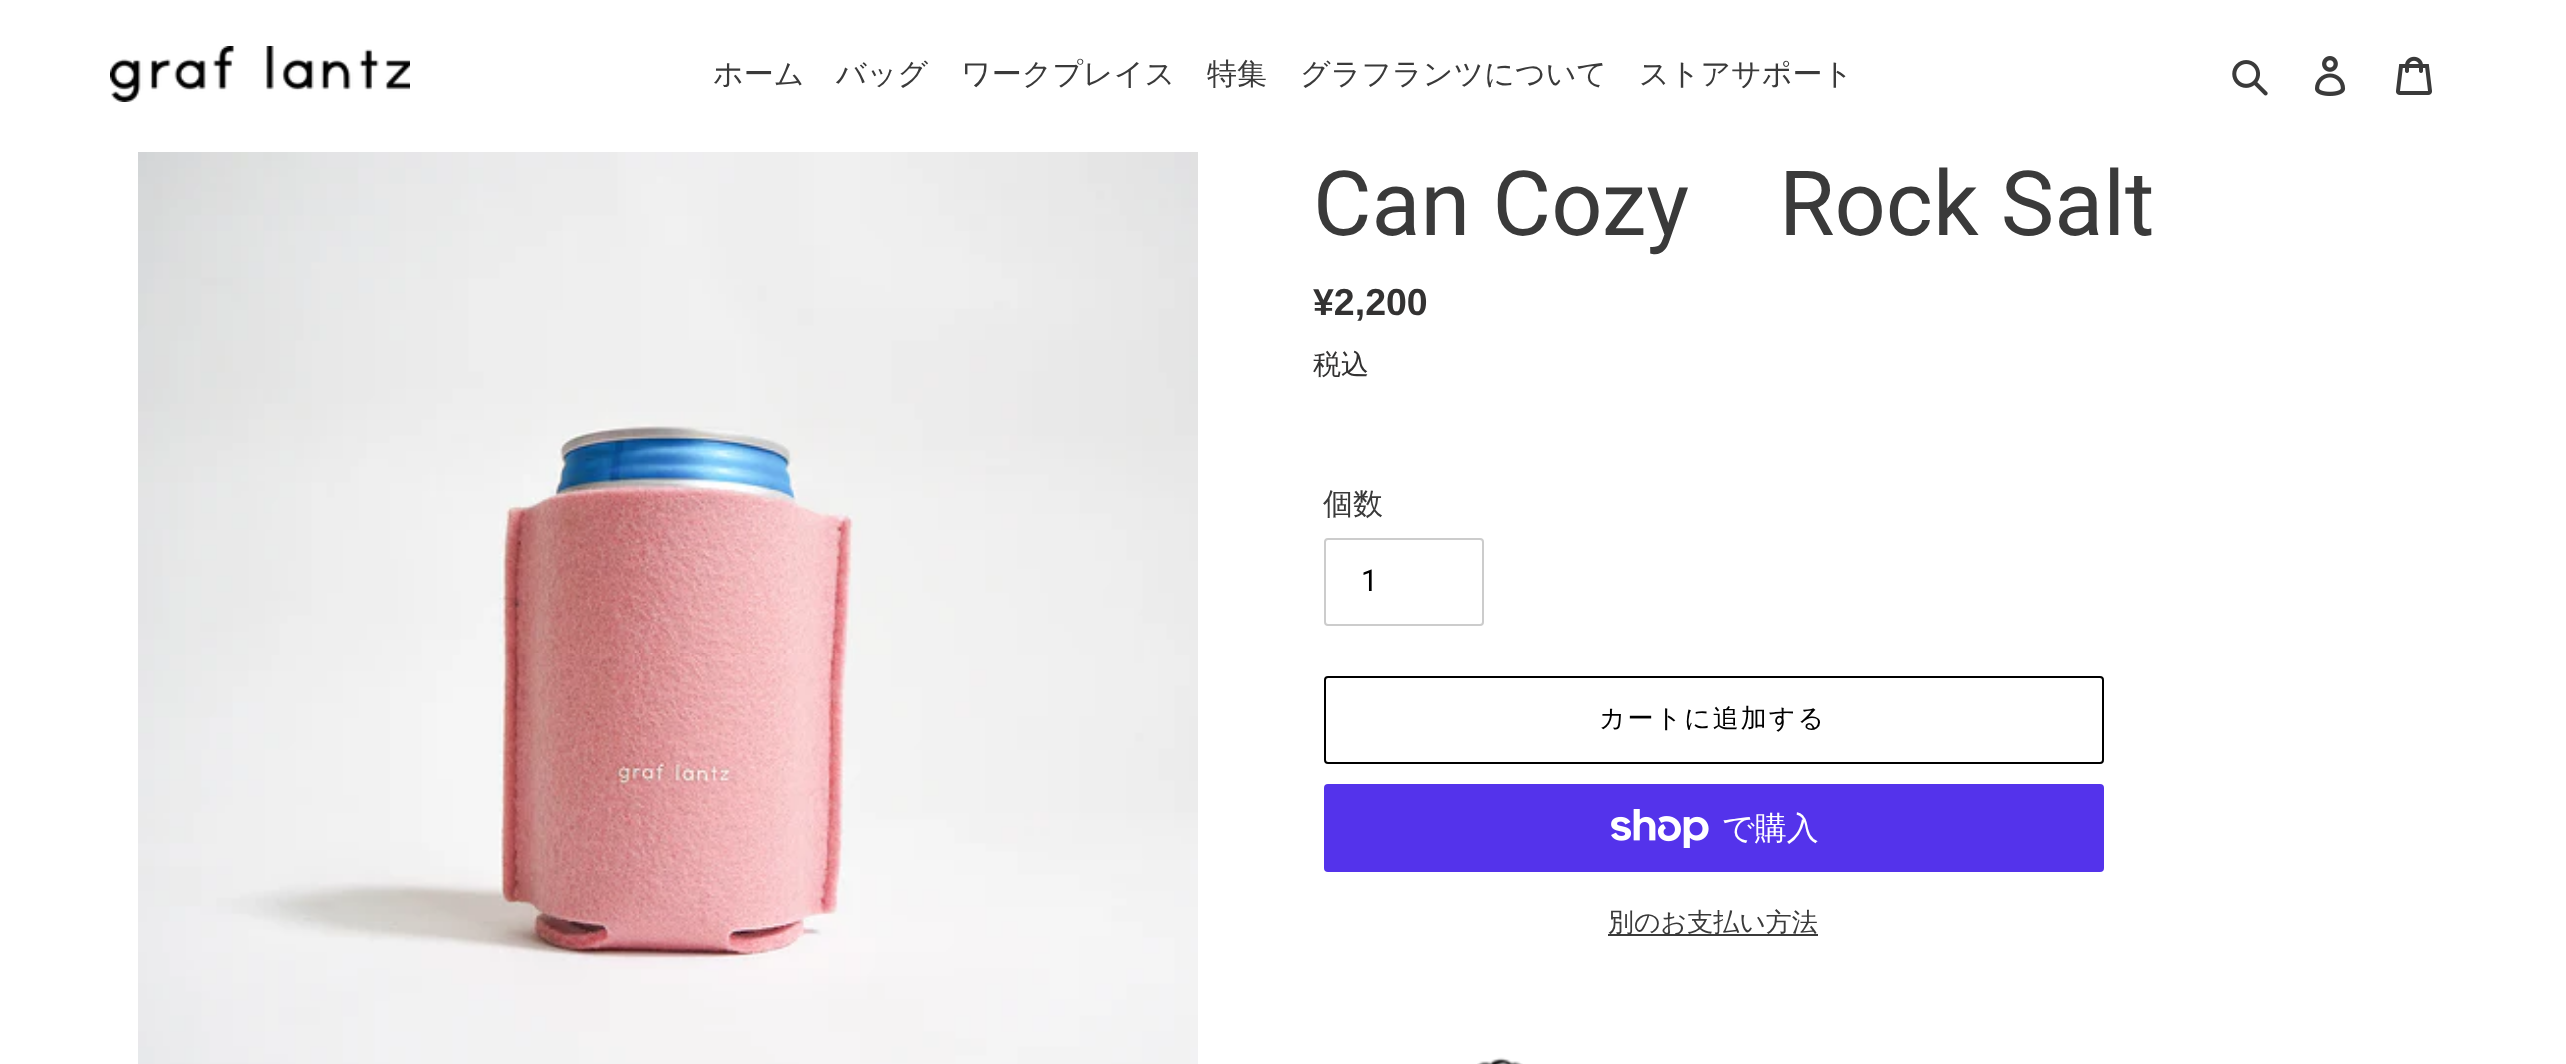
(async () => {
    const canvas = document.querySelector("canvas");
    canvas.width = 2566;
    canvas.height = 1064;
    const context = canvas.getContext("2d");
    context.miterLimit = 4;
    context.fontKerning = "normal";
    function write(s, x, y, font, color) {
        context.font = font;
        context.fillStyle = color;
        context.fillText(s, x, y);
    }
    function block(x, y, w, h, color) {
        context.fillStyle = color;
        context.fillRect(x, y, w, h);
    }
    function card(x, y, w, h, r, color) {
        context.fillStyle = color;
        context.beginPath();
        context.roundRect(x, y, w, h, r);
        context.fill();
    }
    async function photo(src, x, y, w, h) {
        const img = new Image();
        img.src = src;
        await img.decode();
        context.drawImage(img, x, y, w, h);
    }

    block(0, 0, 2566, 1064, "rgb(255, 255, 255)");
    await photo("media/1.png", 110, 46, 300, 56);
    write("ホーム", 713, 84, "500 30px WenQuanYi Zen Hei", "rgb(58, 58, 58)");
    write("バッグ", 836, 84, "500 30px WenQuanYi Zen Hei", "rgb(58, 58, 58)");
    write("ワークプレイス", 961, 84, "500 30px WenQuanYi Zen Hei", "rgb(58, 58, 58)");
    write("特集", 1207, 84, "500 30px WenQuanYi Zen Hei", "rgb(58, 58, 58)");
    write("グラフランツについて", 1300, 84, "500 30px WenQuanYi Zen Hei", "rgb(58, 58, 58)");
    write("ストアサポート", 1639, 84, "500 30px WenQuanYi Zen Hei", "rgb(58, 58, 58)");
    await photo("media/2.png", 2232, 60, 36, 36);
    await photo("media/3.png", 2315, 56, 31, 40);
    await photo("media/4.png", 2396, 56, 36, 39);
    await photo("media/5.png", 138, 152, 1060, 912);
    write("Can Cozy", 1313, 235, "90px Roboto", "rgb(58, 58, 58)");
    write("Rock Salt", 1779, 235, "90px Roboto", "rgb(58, 58, 58)");
    write("¥2,200", 1313, 315, "bold 37.5px Liberation Sans", "rgb(51, 50, 50)");
    write("税込", 1313, 374, "500 28px WenQuanYi Zen Hei", "rgb(51, 50, 50)");
    write("個数", 1323, 514, "500 30px WenQuanYi Zen Hei", "rgb(58, 58, 58)");
    context.beginPath();
    context.roundRect(1325, 539, 158, 86, 3);
    context.strokeStyle = "rgb(204, 204, 204)";
    context.lineWidth = 2;
    context.stroke();
    write("1", 1361, 591, "30px Roboto", "rgb(0, 0, 0)");
    context.beginPath();
    context.roundRect(1325, 677, 778, 86, 3);
    context.strokeStyle = "rgb(0, 0, 0)";
    context.stroke();
    context.letterSpacing = "2px";
    write("カートに追加する", 1599, 727, "500 26px WenQuanYi Zen Hei", "rgb(0, 0, 0)");
    card(1324, 784, 780, 88, 4, "rgb(84, 51, 235)");
    await photo("media/6.png", 1611, 809, 98, 39);
    context.letterSpacing = "0px";
    write("で購入", 1722, 839, "500 32px WenQuanYi Zen Hei", "rgb(255, 255, 255)");
    block(1608, 934, 210, 2, "rgb(58, 58, 58)");
    write("別のお支払い方法", 1608, 931, "500 26px WenQuanYi Zen Hei", "rgb(58, 58, 58)");
    await photo("media/7.png", 1477, 1057, 46, 7);
})();
